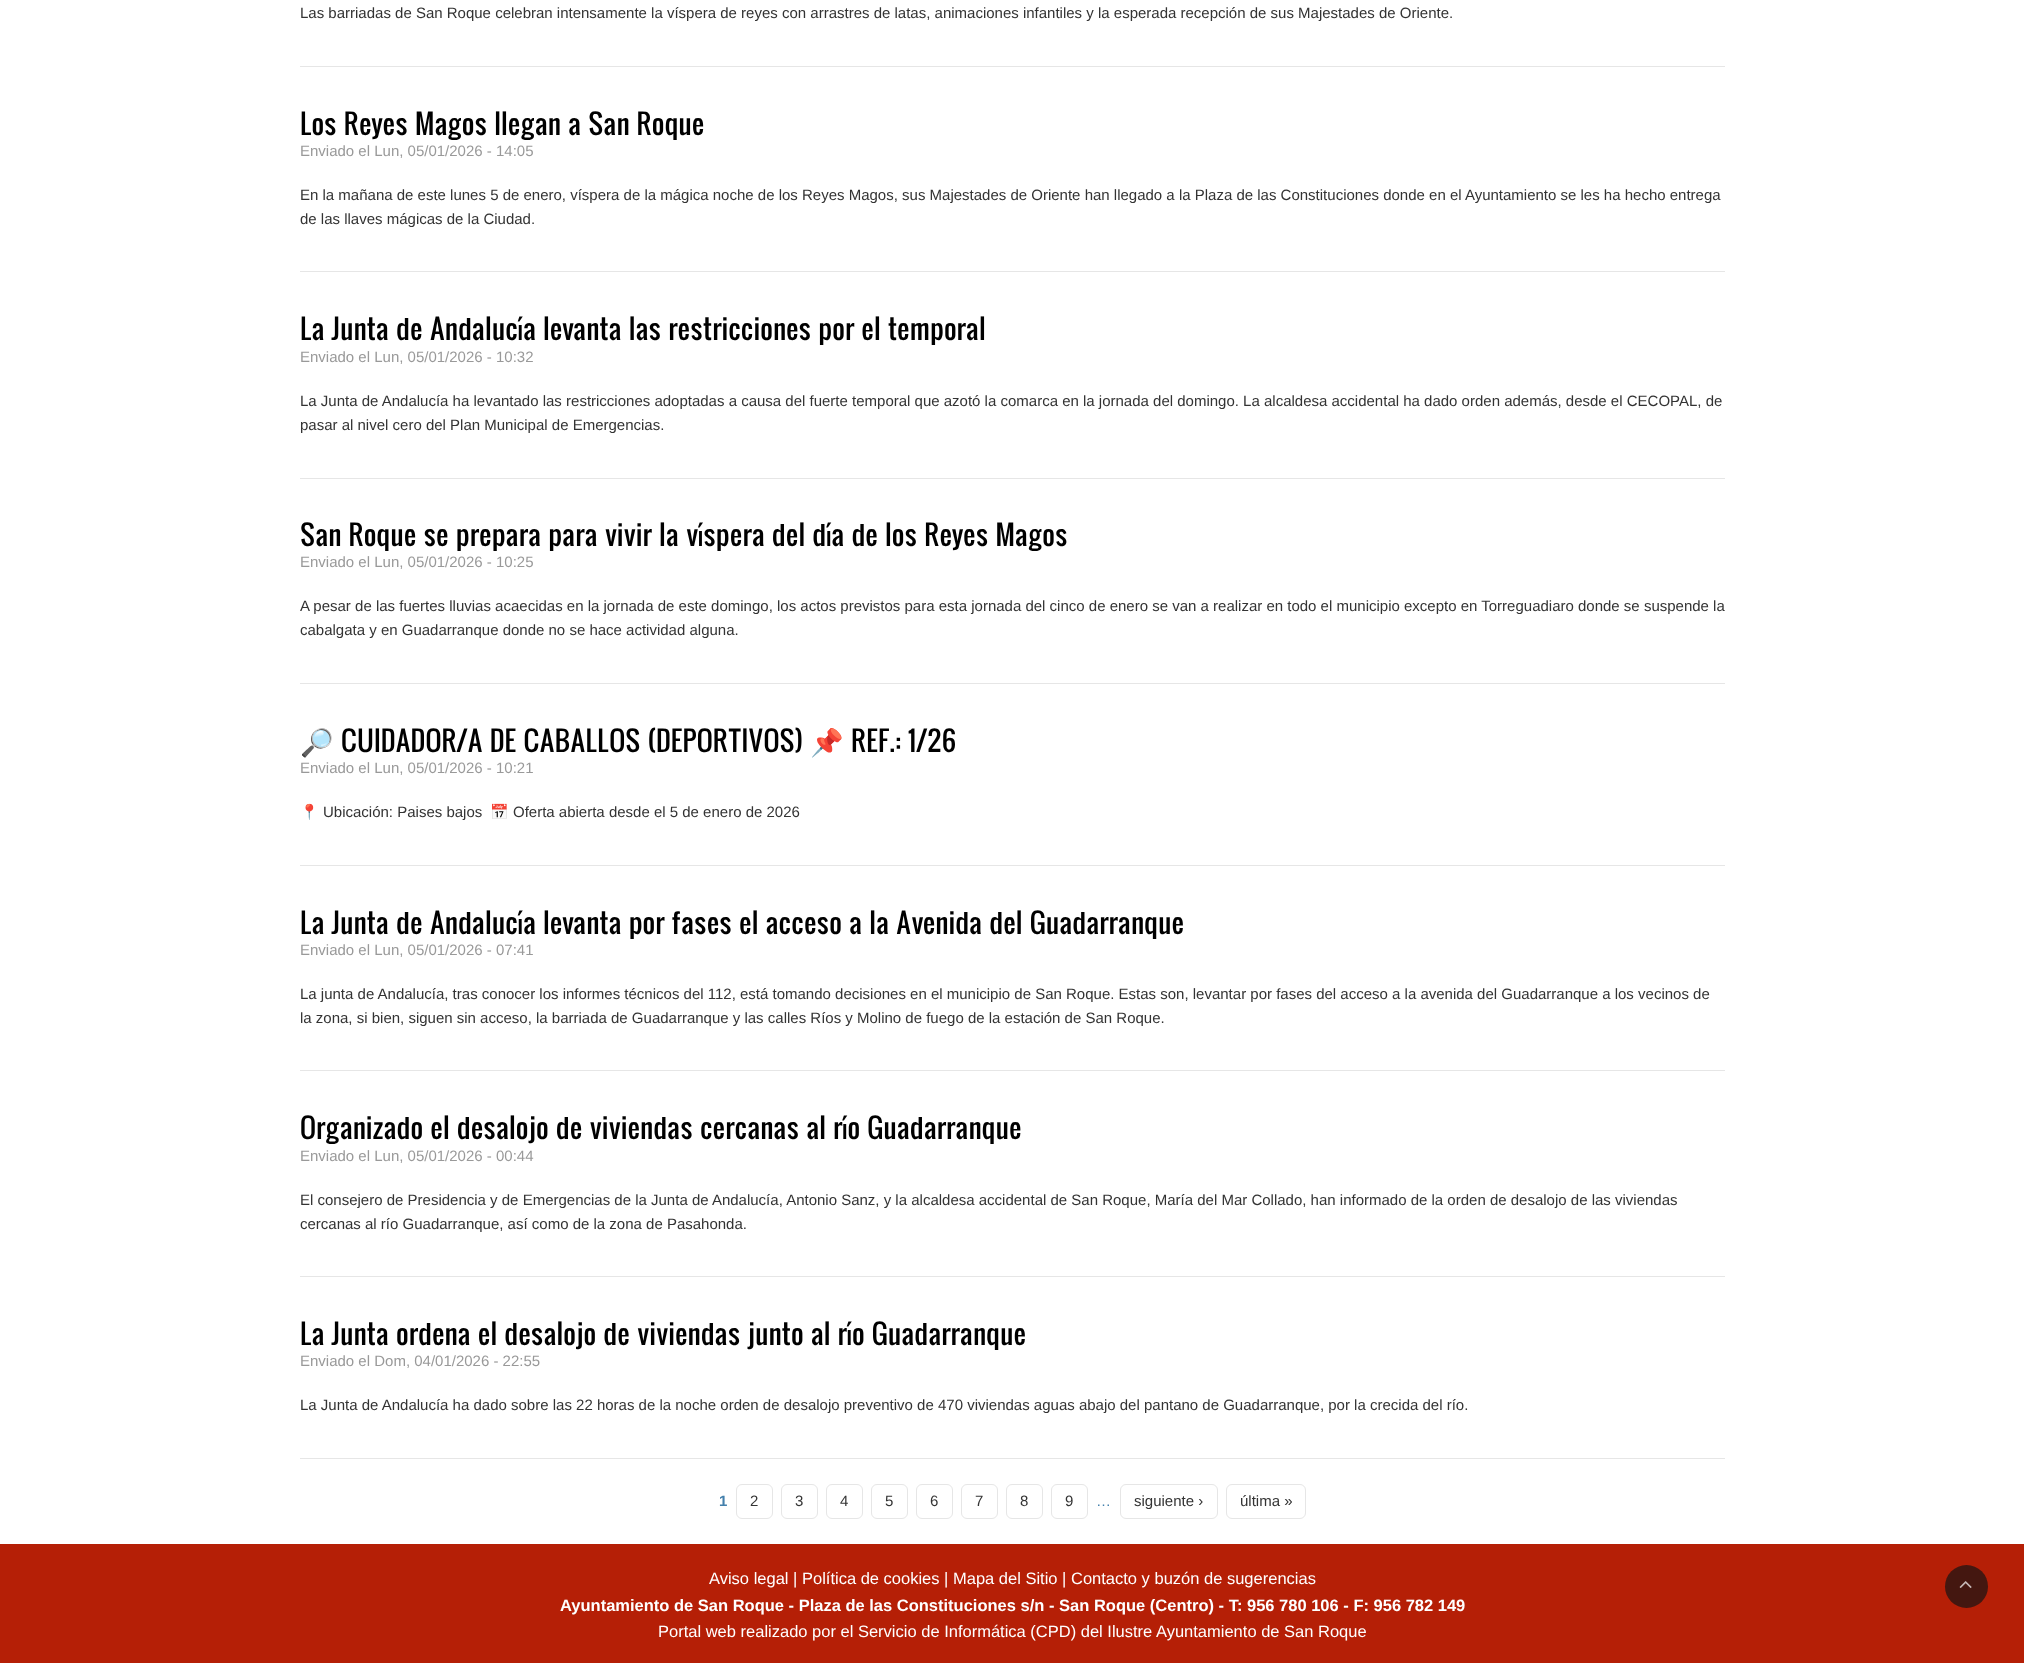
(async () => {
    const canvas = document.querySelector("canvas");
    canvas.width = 2024;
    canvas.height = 1663;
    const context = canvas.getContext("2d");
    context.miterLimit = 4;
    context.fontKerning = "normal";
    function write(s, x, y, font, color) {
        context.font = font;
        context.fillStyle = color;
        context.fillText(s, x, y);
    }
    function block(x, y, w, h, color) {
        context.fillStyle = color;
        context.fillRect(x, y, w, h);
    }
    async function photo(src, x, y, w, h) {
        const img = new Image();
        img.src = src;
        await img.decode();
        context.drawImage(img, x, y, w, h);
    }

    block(0, 0, 2024, 1663, "rgb(255, 255, 255)");
    block(300, 66, 1425, 1, "rgb(230, 230, 230)");
    write("Las barriadas de San Roque celebran intensamente la víspera de reyes con arrastres de latas, animaciones infantiles y la esperada recepción de sus Majestades de Oriente.", 300, 18, "15px Liberation Sans", "rgb(51, 51, 51)");
    block(300, 271, 1425, 1, "rgb(230, 230, 230)");
    write("Los Reyes Magos llegan a San Roque", 300, 135, "27px Oswald", "rgb(0, 0, 0)");
    write("Enviado el Lun, 05/01/2026 - 14:05", 300, 156, "15px Liberation Sans", "rgb(153, 153, 153)");
    write("En la mañana de este lunes 5 de enero, víspera de la mágica noche de los Reyes Magos, sus Majestades de Oriente han llegado a la Plaza de las Constituciones donde en el Ayuntamiento se les ha hecho entrega", 300, 200, "15px Liberation Sans", "rgb(51, 51, 51)");
    write("de las llaves mágicas de la Ciudad.", 300, 224, "15px Liberation Sans", "rgb(51, 51, 51)");
    block(300, 478, 1425, 1, "rgb(230, 230, 230)");
    write("La Junta de Andalucía levanta las restricciones por el temporal", 300, 340, "27px Oswald", "rgb(0, 0, 0)");
    write("Enviado el Lun, 05/01/2026 - 10:32", 300, 362, "15px Liberation Sans", "rgb(153, 153, 153)");
    write("La Junta de Andalucía ha levantado las restricciones adoptadas a causa del fuerte temporal que azotó la comarca en la jornada del domingo. La alcaldesa accidental ha dado orden además, desde el CECOPAL, de", 300, 406, "15px Liberation Sans", "rgb(51, 51, 51)");
    write("pasar al nivel cero del Plan Municipal de Emergencias.", 300, 430, "15px Liberation Sans", "rgb(51, 51, 51)");
    block(300, 683, 1425, 1, "rgb(230, 230, 230)");
    write("San Roque se prepara para vivir la víspera del día de los Reyes Magos", 300, 546, "27px Oswald", "rgb(0, 0, 0)");
    write("Enviado el Lun, 05/01/2026 - 10:25", 300, 567, "15px Liberation Sans", "rgb(153, 153, 153)");
    write("A pesar de las fuertes lluvias acaecidas en la jornada de este domingo, los actos previstos para esta jornada del cinco de enero se van a realizar en todo el municipio excepto en Torreguadiaro donde se suspende la", 300, 611, "15px Liberation Sans", "rgb(51, 51, 51)");
    write("cabalgata y en Guadarranque donde no se hace actividad alguna.", 300, 635, "15px Liberation Sans", "rgb(51, 51, 51)");
    block(300, 865, 1425, 1, "rgb(230, 230, 230)");
    write("🔎", 300, 752, "27px Noto Color Emoji", "rgb(0, 0, 0)");
    write("CUIDADOR/A DE CABALLOS (DEPORTIVOS)", 341, 752, "27px Oswald", "rgb(0, 0, 0)");
    write("📌", 810, 752, "27px Noto Color Emoji", "rgb(0, 0, 0)");
    write("REF.: 1/26", 851, 752, "27px Oswald", "rgb(0, 0, 0)");
    write("Enviado el Lun, 05/01/2026 - 10:21", 300, 773, "15px Liberation Sans", "rgb(153, 153, 153)");
    write("📍", 300, 817, "15px Noto Color Emoji", "rgb(51, 51, 51)");
    write("Ubicación: Paises bajos", 323, 817, "15px Liberation Sans", "rgb(51, 51, 51)");
    write("📅", 490, 817, "15px Noto Color Emoji", "rgb(51, 51, 51)");
    write("Oferta abierta desde el 5 de enero de 2026", 513, 817, "15px Liberation Sans", "rgb(51, 51, 51)");
    block(300, 1070, 1425, 1, "rgb(230, 230, 230)");
    write("La Junta de Andalucía levanta por fases el acceso a la Avenida del Guadarranque", 300, 934, "27px Oswald", "rgb(0, 0, 0)");
    write("Enviado el Lun, 05/01/2026 - 07:41", 300, 955, "15px Liberation Sans", "rgb(153, 153, 153)");
    write("La junta de Andalucía, tras conocer los informes técnicos del 112, está tomando decisiones en el municipio de San Roque. Estas son, levantar por fases del acceso a la avenida del Guadarranque a los vecinos de", 300, 999, "15px Liberation Sans", "rgb(51, 51, 51)");
    write("la zona, si bien, siguen sin acceso, la barriada de Guadarranque y las calles Ríos y Molino de fuego de la estación de San Roque.", 300, 1023, "15px Liberation Sans", "rgb(51, 51, 51)");
    block(300, 1276, 1425, 1, "rgb(230, 230, 230)");
    write("Organizado el desalojo de viviendas cercanas al río Guadarranque", 300, 1139, "27px Oswald", "rgb(0, 0, 0)");
    write("Enviado el Lun, 05/01/2026 - 00:44", 300, 1161, "15px Liberation Sans", "rgb(153, 153, 153)");
    write("El consejero de Presidencia y de Emergencias de la Junta de Andalucía, Antonio Sanz, y la alcaldesa accidental de San Roque, María del Mar Collado, han informado de la orden de desalojo de las viviendas", 300, 1205, "15px Liberation Sans", "rgb(51, 51, 51)");
    write("cercanas al río Guadarranque, así como de la zona de Pasahonda.", 300, 1229, "15px Liberation Sans", "rgb(51, 51, 51)");
    block(300, 1458, 1425, 1, "rgb(230, 230, 230)");
    write("La Junta ordena el desalojo de viviendas junto al río Guadarranque", 300, 1345, "27px Oswald", "rgb(0, 0, 0)");
    write("Enviado el Dom, 04/01/2026 - 22:55", 300, 1366, "15px Liberation Sans", "rgb(153, 153, 153)");
    write("La Junta de Andalucía ha dado sobre las 22 horas de la noche orden de desalojo preventivo de 470 viviendas aguas abajo del pantano de Guadarranque, por la crecida del río.", 300, 1410, "15px Liberation Sans", "rgb(51, 51, 51)");
    write("1", 719, 1506, "bold 15px Liberation Sans", "rgb(68, 128, 172)");
    context.beginPath();
    context.roundRect(736.5, 1484.5, 36, 34, 5.5);
    context.strokeStyle = "rgb(230, 230, 230)";
    context.stroke();
    write("2", 750, 1506, "15px Liberation Sans", "rgb(51, 51, 51)");
    context.beginPath();
    context.roundRect(781.5, 1484.5, 36, 34, 5.5);
    context.stroke();
    write("3", 795, 1506, "15px Liberation Sans", "rgb(51, 51, 51)");
    context.beginPath();
    context.roundRect(826.5, 1484.5, 36, 34, 5.5);
    context.stroke();
    write("4", 840, 1506, "15px Liberation Sans", "rgb(51, 51, 51)");
    context.beginPath();
    context.roundRect(871.5, 1484.5, 36, 34, 5.5);
    context.stroke();
    write("5", 885, 1506, "15px Liberation Sans", "rgb(51, 51, 51)");
    context.beginPath();
    context.roundRect(916.5, 1484.5, 36, 34, 5.5);
    context.stroke();
    write("6", 930, 1506, "15px Liberation Sans", "rgb(51, 51, 51)");
    context.beginPath();
    context.roundRect(961.5, 1484.5, 36, 34, 5.5);
    context.stroke();
    write("7", 975, 1506, "15px Liberation Sans", "rgb(51, 51, 51)");
    context.beginPath();
    context.roundRect(1006.5, 1484.5, 36, 34, 5.5);
    context.stroke();
    write("8", 1020, 1506, "15px Liberation Sans", "rgb(51, 51, 51)");
    context.beginPath();
    context.roundRect(1051.5, 1484.5, 36, 34, 5.5);
    context.stroke();
    write("9", 1065, 1506, "15px Liberation Sans", "rgb(51, 51, 51)");
    write("…", 1096, 1506, "15px Liberation Sans", "rgb(68, 128, 172)");
    context.beginPath();
    context.roundRect(1120.5, 1484.5, 97, 34, 5.5);
    context.stroke();
    write("siguiente ›", 1134, 1506, "15px Liberation Sans", "rgb(51, 51, 51)");
    context.beginPath();
    context.roundRect(1226.5, 1484.5, 79, 34, 5.5);
    context.stroke();
    write("última »", 1240, 1506, "15px Liberation Sans", "rgb(51, 51, 51)");
    block(0, 1544, 2024, 119, "rgb(181, 31, 6)");
    write("Aviso legal | Política de cookies | Mapa del Sitio | Contacto y buzón de sugerencias", 709, 1584, "16.5px Liberation Sans", "rgb(255, 255, 255)");
    write("Ayuntamiento de San Roque - Plaza de las Constituciones s/n - San Roque (Centro) - T: 956 780 106 - F: 956 782 149", 560, 1611, "bold 16.5px Liberation Sans", "rgb(255, 255, 255)");
    write("Portal web realizado por el Servicio de Informática (CPD) del Ilustre Ayuntamiento de San Roque", 658, 1637, "16.5px Liberation Sans", "rgb(255, 255, 255)");
    context.fillStyle = "rgb(68, 23, 16)";
    context.beginPath();
    context.arc(1966.5, 1586.5, 21.5, 0, Math.PI * 2);
    context.fill();
    await photo("media/1.png", 1959, 1581, 13, 7);
})();
